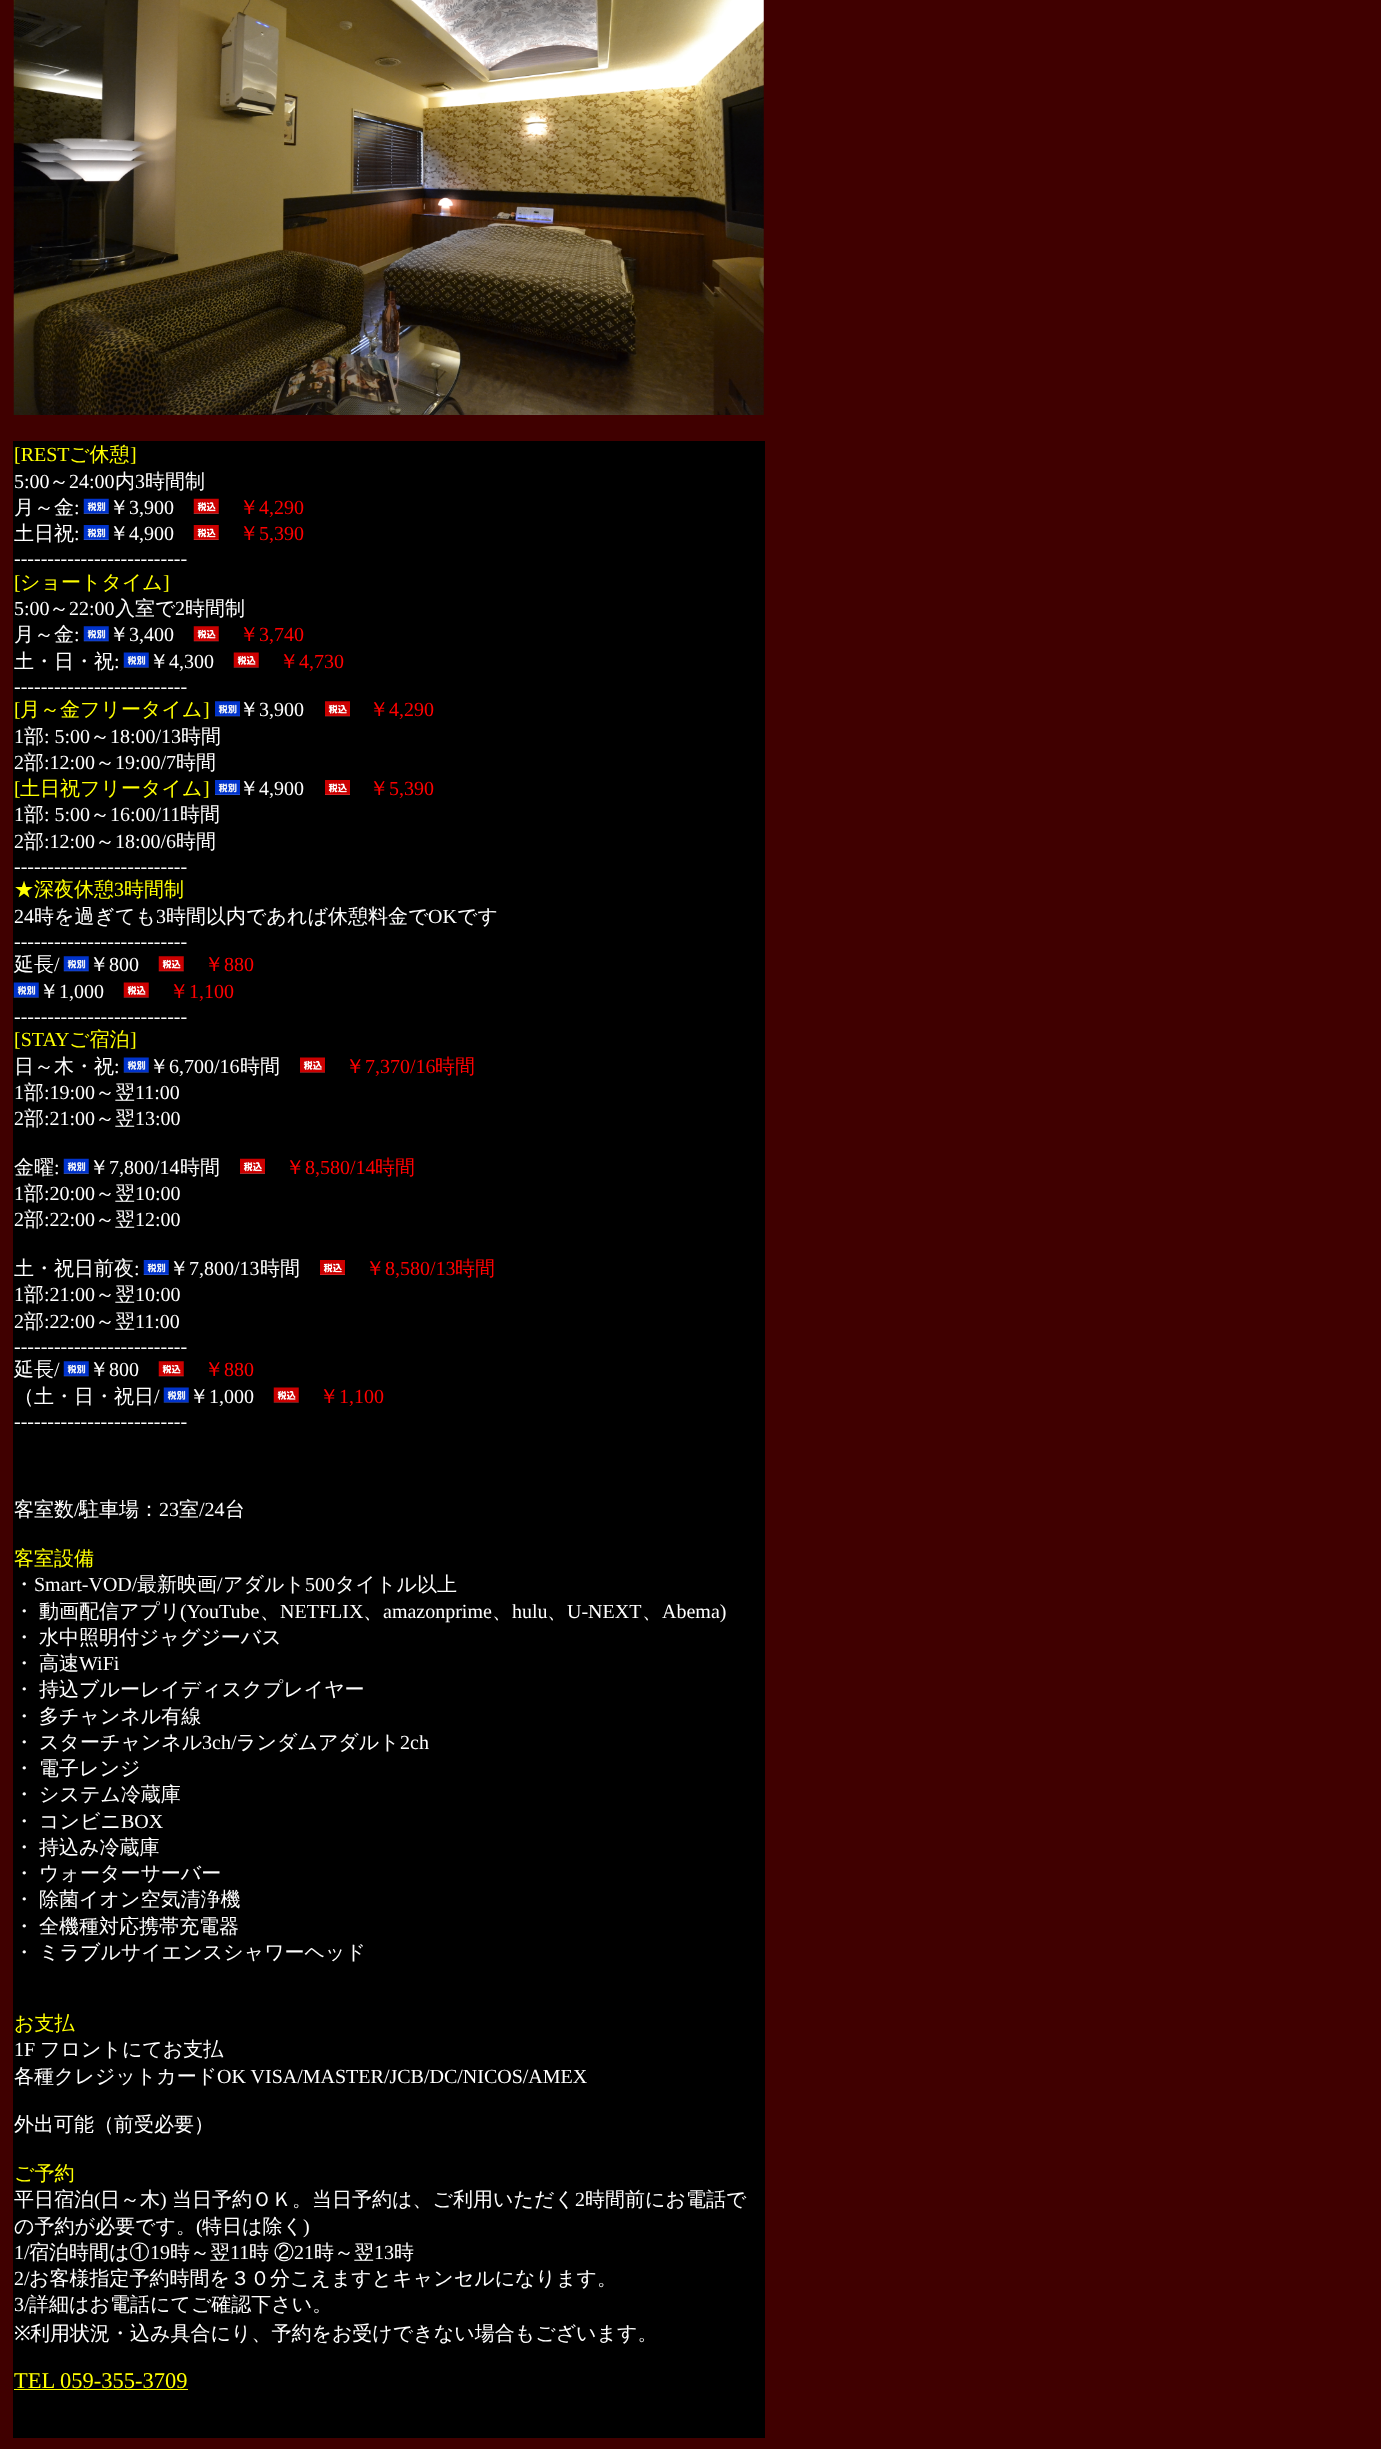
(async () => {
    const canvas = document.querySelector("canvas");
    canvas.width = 1381;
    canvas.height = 2449;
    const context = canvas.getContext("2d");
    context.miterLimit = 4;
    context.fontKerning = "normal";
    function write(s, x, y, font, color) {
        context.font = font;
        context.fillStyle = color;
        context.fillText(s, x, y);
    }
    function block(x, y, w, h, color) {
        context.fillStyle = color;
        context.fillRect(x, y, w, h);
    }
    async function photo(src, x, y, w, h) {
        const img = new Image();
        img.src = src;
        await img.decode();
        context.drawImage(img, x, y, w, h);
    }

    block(0, 0, 1381, 2449, "rgb(64, 0, 0)");
    await photo("media/1.png", 13, 0, 751, 415);
    block(13, 441, 752, 1997, "rgb(0, 0, 0)");
    write("[REST", 14, 461, "20px Liberation Serif", "rgb(255, 255, 0)");
    write("ご休憩", 69, 461, "500 20px WenQuanYi Zen Hei", "rgb(255, 255, 0)");
    write("]", 130, 461, "20px Liberation Serif", "rgb(255, 255, 0)");
    write("5:00", 14, 488, "20px Liberation Serif", "rgb(255, 255, 255)");
    write("～", 49, 488, "500 20px WenQuanYi Zen Hei", "rgb(255, 255, 255)");
    write("24:00", 69, 488, "20px Liberation Serif", "rgb(255, 255, 255)");
    write("内", 115, 488, "500 20px WenQuanYi Zen Hei", "rgb(255, 255, 255)");
    write("3", 135, 488, "20px Liberation Serif", "rgb(255, 255, 255)");
    write("時間制", 145, 488, "500 20px WenQuanYi Zen Hei", "rgb(255, 255, 255)");
    write("月～金", 14, 514, "500 20px WenQuanYi Zen Hei", "rgb(255, 255, 255)");
    write(":", 74, 514, "20px Liberation Serif", "rgb(255, 255, 255)");
    await photo("media/2.png", 83, 498, 26, 16);
    write("￥", 109, 514, "500 20px WenQuanYi Zen Hei", "rgb(255, 255, 255)");
    write("3,900", 129, 514, "20px Liberation Serif", "rgb(255, 255, 255)");
    await photo("media/3.png", 193, 498, 26, 16);
    write("￥", 239, 514, "500 20px WenQuanYi Zen Hei", "rgb(255, 0, 0)");
    write("4,290", 259, 514, "20px Liberation Serif", "rgb(255, 0, 0)");
    write("土日祝", 14, 540, "500 20px WenQuanYi Zen Hei", "rgb(255, 255, 255)");
    write(":", 74, 540, "20px Liberation Serif", "rgb(255, 255, 255)");
    await photo("media/4.png", 83, 525, 26, 15);
    write("￥", 109, 540, "500 20px WenQuanYi Zen Hei", "rgb(255, 255, 255)");
    write("4,900", 129, 540, "20px Liberation Serif", "rgb(255, 255, 255)");
    await photo("media/5.png", 193, 525, 26, 15);
    write("￥", 239, 540, "500 20px WenQuanYi Zen Hei", "rgb(255, 0, 0)");
    write("5,390", 259, 540, "20px Liberation Serif", "rgb(255, 0, 0)");
    write("--------------------------", 14, 565, "20px Liberation Serif", "rgb(255, 255, 255)");
    write("[", 14, 589, "20px Liberation Serif", "rgb(255, 255, 0)");
    write("ショートタイム", 20, 589, "500 20px WenQuanYi Zen Hei", "rgb(255, 255, 0)");
    write("]", 163, 589, "20px Liberation Serif", "rgb(255, 255, 0)");
    write("5:00", 14, 615, "20px Liberation Serif", "rgb(255, 255, 255)");
    write("～", 49, 615, "500 20px WenQuanYi Zen Hei", "rgb(255, 255, 255)");
    write("22:00", 69, 615, "20px Liberation Serif", "rgb(255, 255, 255)");
    write("入室で", 115, 615, "500 20px WenQuanYi Zen Hei", "rgb(255, 255, 255)");
    write("2", 175, 615, "20px Liberation Serif", "rgb(255, 255, 255)");
    write("時間制", 185, 615, "500 20px WenQuanYi Zen Hei", "rgb(255, 255, 255)");
    write("月～金", 14, 641, "500 20px WenQuanYi Zen Hei", "rgb(255, 255, 255)");
    write(":", 74, 641, "20px Liberation Serif", "rgb(255, 255, 255)");
    await photo("media/6.png", 83, 626, 26, 16);
    write("￥", 109, 641, "500 20px WenQuanYi Zen Hei", "rgb(255, 255, 255)");
    write("3,400", 129, 641, "20px Liberation Serif", "rgb(255, 255, 255)");
    await photo("media/7.png", 193, 626, 26, 16);
    write("￥", 239, 641, "500 20px WenQuanYi Zen Hei", "rgb(255, 0, 0)");
    write("3,740", 259, 641, "20px Liberation Serif", "rgb(255, 0, 0)");
    write("土・日・祝", 14, 668, "500 20px WenQuanYi Zen Hei", "rgb(255, 255, 255)");
    write(":", 114, 668, "20px Liberation Serif", "rgb(255, 255, 255)");
    await photo("media/8.png", 123, 652, 26, 16);
    write("￥", 149, 668, "500 20px WenQuanYi Zen Hei", "rgb(255, 255, 255)");
    write("4,300", 169, 668, "20px Liberation Serif", "rgb(255, 255, 255)");
    await photo("media/9.png", 233, 652, 26, 16);
    write("￥", 279, 668, "500 20px WenQuanYi Zen Hei", "rgb(255, 0, 0)");
    write("4,730", 299, 668, "20px Liberation Serif", "rgb(255, 0, 0)");
    write("--------------------------", 14, 693, "20px Liberation Serif", "rgb(255, 255, 255)");
    write("[", 14, 716, "20px Liberation Serif", "rgb(255, 255, 0)");
    write("月～金フリータイム", 20, 716, "500 20px WenQuanYi Zen Hei", "rgb(255, 255, 0)");
    write("]", 203, 716, "20px Liberation Serif", "rgb(255, 255, 0)");
    await photo("media/10.png", 215, 701, 25, 16);
    write("￥", 239, 716, "500 20px WenQuanYi Zen Hei", "rgb(255, 255, 255)");
    write("3,900", 259, 716, "20px Liberation Serif", "rgb(255, 255, 255)");
    await photo("media/11.png", 325, 701, 25, 16);
    write("￥", 369, 716, "500 20px WenQuanYi Zen Hei", "rgb(255, 0, 0)");
    write("4,290", 389, 716, "20px Liberation Serif", "rgb(255, 0, 0)");
    write("1", 14, 743, "20px Liberation Serif", "rgb(255, 255, 255)");
    write("部", 24, 743, "500 20px WenQuanYi Zen Hei", "rgb(255, 255, 255)");
    write(": 5:00", 44, 743, "20px Liberation Serif", "rgb(255, 255, 255)");
    write("～", 90, 743, "500 20px WenQuanYi Zen Hei", "rgb(255, 255, 255)");
    write("18:00/13", 110, 743, "20px Liberation Serif", "rgb(255, 255, 255)");
    write("時間", 181, 743, "500 20px WenQuanYi Zen Hei", "rgb(255, 255, 255)");
    write("2", 14, 769, "20px Liberation Serif", "rgb(255, 255, 255)");
    write("部", 24, 769, "500 20px WenQuanYi Zen Hei", "rgb(255, 255, 255)");
    write(":12:00", 44, 769, "20px Liberation Serif", "rgb(255, 255, 255)");
    write("～", 95, 769, "500 20px WenQuanYi Zen Hei", "rgb(255, 255, 255)");
    write("19:00/7", 115, 769, "20px Liberation Serif", "rgb(255, 255, 255)");
    write("時間", 176, 769, "500 20px WenQuanYi Zen Hei", "rgb(255, 255, 255)");
    write("[", 14, 795, "20px Liberation Serif", "rgb(255, 255, 0)");
    write("土日祝フリータイム", 20, 795, "500 20px WenQuanYi Zen Hei", "rgb(255, 255, 0)");
    write("]", 203, 795, "20px Liberation Serif", "rgb(255, 255, 0)");
    await photo("media/12.png", 215, 780, 25, 15);
    write("￥", 239, 795, "500 20px WenQuanYi Zen Hei", "rgb(255, 255, 255)");
    write("4,900", 259, 795, "20px Liberation Serif", "rgb(255, 255, 255)");
    await photo("media/13.png", 325, 780, 25, 15);
    write("￥", 369, 795, "500 20px WenQuanYi Zen Hei", "rgb(255, 0, 0)");
    write("5,390", 389, 795, "20px Liberation Serif", "rgb(255, 0, 0)");
    write("1", 14, 821, "20px Liberation Serif", "rgb(255, 255, 255)");
    write("部", 24, 821, "500 20px WenQuanYi Zen Hei", "rgb(255, 255, 255)");
    write(": 5:00", 44, 821, "20px Liberation Serif", "rgb(255, 255, 255)");
    write("～", 90, 821, "500 20px WenQuanYi Zen Hei", "rgb(255, 255, 255)");
    write("16:00/11", 110, 821, "20px Liberation Serif", "rgb(255, 255, 255)");
    write("時間", 180, 821, "500 20px WenQuanYi Zen Hei", "rgb(255, 255, 255)");
    write("2", 14, 848, "20px Liberation Serif", "rgb(255, 255, 255)");
    write("部", 24, 848, "500 20px WenQuanYi Zen Hei", "rgb(255, 255, 255)");
    write(":12:00", 44, 848, "20px Liberation Serif", "rgb(255, 255, 255)");
    write("～", 95, 848, "500 20px WenQuanYi Zen Hei", "rgb(255, 255, 255)");
    write("18:00/6", 115, 848, "20px Liberation Serif", "rgb(255, 255, 255)");
    write("時間", 176, 848, "500 20px WenQuanYi Zen Hei", "rgb(255, 255, 255)");
    write("--------------------------", 14, 873, "20px Liberation Serif", "rgb(255, 255, 255)");
    write("★深夜休憩", 14, 896, "500 20px WenQuanYi Zen Hei", "rgb(255, 255, 0)");
    write("3", 114, 896, "20px Liberation Serif", "rgb(255, 255, 0)");
    write("時間制", 124, 896, "500 20px WenQuanYi Zen Hei", "rgb(255, 255, 0)");
    write("24", 14, 923, "20px Liberation Serif", "rgb(255, 255, 255)");
    write("時を過ぎても", 34, 923, "500 20px WenQuanYi Zen Hei", "rgb(255, 255, 255)");
    write("3", 156, 923, "20px Liberation Serif", "rgb(255, 255, 255)");
    write("時間以内であれば休憩料金で", 166, 923, "500 20px WenQuanYi Zen Hei", "rgb(255, 255, 255)");
    write("OK", 428, 923, "20px Liberation Serif", "rgb(255, 255, 255)");
    write("です", 457, 923, "500 20px WenQuanYi Zen Hei", "rgb(255, 255, 255)");
    write("--------------------------", 14, 948, "20px Liberation Serif", "rgb(255, 255, 255)");
    write("延長", 14, 971, "500 20px WenQuanYi Zen Hei", "rgb(255, 255, 255)");
    write("/", 54, 971, "20px Liberation Serif", "rgb(255, 255, 255)");
    await photo("media/14.png", 63, 956, 26, 16);
    write("￥", 89, 971, "500 20px WenQuanYi Zen Hei", "rgb(255, 255, 255)");
    write("800", 109, 971, "20px Liberation Serif", "rgb(255, 255, 255)");
    await photo("media/7.png", 158, 956, 26, 16);
    write("￥", 204, 971, "500 20px WenQuanYi Zen Hei", "rgb(255, 0, 0)");
    write("880", 224, 971, "20px Liberation Serif", "rgb(255, 0, 0)");
    await photo("media/8.png", 13, 982, 26, 16);
    write("￥", 39, 998, "500 20px WenQuanYi Zen Hei", "rgb(255, 255, 255)");
    write("1,000", 59, 998, "20px Liberation Serif", "rgb(255, 255, 255)");
    await photo("media/9.png", 123, 982, 26, 16);
    write("￥", 169, 998, "500 20px WenQuanYi Zen Hei", "rgb(255, 0, 0)");
    write("1,100", 189, 998, "20px Liberation Serif", "rgb(255, 0, 0)");
    write("--------------------------", 14, 1023, "20px Liberation Serif", "rgb(255, 255, 255)");
    write("[STAY", 14, 1046, "20px Liberation Serif", "rgb(255, 255, 0)");
    write("ご宿泊", 69, 1046, "500 20px WenQuanYi Zen Hei", "rgb(255, 255, 0)");
    write("]", 130, 1046, "20px Liberation Serif", "rgb(255, 255, 0)");
    write("日～木・祝", 14, 1073, "500 20px WenQuanYi Zen Hei", "rgb(255, 255, 255)");
    write(":", 114, 1073, "20px Liberation Serif", "rgb(255, 255, 255)");
    await photo("media/8.png", 123, 1057, 26, 16);
    write("￥", 149, 1073, "500 20px WenQuanYi Zen Hei", "rgb(255, 255, 255)");
    write("6,700/16", 169, 1073, "20px Liberation Serif", "rgb(255, 255, 255)");
    write("時間", 240, 1073, "500 20px WenQuanYi Zen Hei", "rgb(255, 255, 255)");
    await photo("media/15.png", 300, 1057, 25, 16);
    write("￥", 345, 1073, "500 20px WenQuanYi Zen Hei", "rgb(255, 0, 0)");
    write("7,370/16", 365, 1073, "20px Liberation Serif", "rgb(255, 0, 0)");
    write("時間", 435, 1073, "500 20px WenQuanYi Zen Hei", "rgb(255, 0, 0)");
    write("1", 14, 1099, "20px Liberation Serif", "rgb(255, 255, 255)");
    write("部", 24, 1099, "500 20px WenQuanYi Zen Hei", "rgb(255, 255, 255)");
    write(":19:00", 44, 1099, "20px Liberation Serif", "rgb(255, 255, 255)");
    write("～翌", 95, 1099, "500 20px WenQuanYi Zen Hei", "rgb(255, 255, 255)");
    write("11:00", 135, 1099, "20px Liberation Serif", "rgb(255, 255, 255)");
    write("2", 14, 1125, "20px Liberation Serif", "rgb(255, 255, 255)");
    write("部", 24, 1125, "500 20px WenQuanYi Zen Hei", "rgb(255, 255, 255)");
    write(":21:00", 44, 1125, "20px Liberation Serif", "rgb(255, 255, 255)");
    write("～翌", 95, 1125, "500 20px WenQuanYi Zen Hei", "rgb(255, 255, 255)");
    write("13:00", 135, 1125, "20px Liberation Serif", "rgb(255, 255, 255)");
    write("金曜", 14, 1174, "500 20px WenQuanYi Zen Hei", "rgb(255, 255, 255)");
    write(":", 54, 1174, "20px Liberation Serif", "rgb(255, 255, 255)");
    await photo("media/16.png", 63, 1158, 26, 16);
    write("￥", 89, 1174, "500 20px WenQuanYi Zen Hei", "rgb(255, 255, 255)");
    write("7,800/14", 109, 1174, "20px Liberation Serif", "rgb(255, 255, 255)");
    write("時間", 180, 1174, "500 20px WenQuanYi Zen Hei", "rgb(255, 255, 255)");
    await photo("media/17.png", 240, 1158, 25, 16);
    write("￥", 285, 1174, "500 20px WenQuanYi Zen Hei", "rgb(255, 0, 0)");
    write("8,580/14", 305, 1174, "20px Liberation Serif", "rgb(255, 0, 0)");
    write("時間", 375, 1174, "500 20px WenQuanYi Zen Hei", "rgb(255, 0, 0)");
    write("1", 14, 1200, "20px Liberation Serif", "rgb(255, 255, 255)");
    write("部", 24, 1200, "500 20px WenQuanYi Zen Hei", "rgb(255, 255, 255)");
    write(":20:00", 44, 1200, "20px Liberation Serif", "rgb(255, 255, 255)");
    write("～翌", 95, 1200, "500 20px WenQuanYi Zen Hei", "rgb(255, 255, 255)");
    write("10:00", 135, 1200, "20px Liberation Serif", "rgb(255, 255, 255)");
    write("2", 14, 1226, "20px Liberation Serif", "rgb(255, 255, 255)");
    write("部", 24, 1226, "500 20px WenQuanYi Zen Hei", "rgb(255, 255, 255)");
    write(":22:00", 44, 1226, "20px Liberation Serif", "rgb(255, 255, 255)");
    write("～翌", 95, 1226, "500 20px WenQuanYi Zen Hei", "rgb(255, 255, 255)");
    write("12:00", 135, 1226, "20px Liberation Serif", "rgb(255, 255, 255)");
    write("土・祝日前夜", 14, 1275, "500 20px WenQuanYi Zen Hei", "rgb(255, 255, 255)");
    write(":", 134, 1275, "20px Liberation Serif", "rgb(255, 255, 255)");
    await photo("media/4.png", 143, 1260, 26, 15);
    write("￥", 169, 1275, "500 20px WenQuanYi Zen Hei", "rgb(255, 255, 255)");
    write("7,800/13", 189, 1275, "20px Liberation Serif", "rgb(255, 255, 255)");
    write("時間", 260, 1275, "500 20px WenQuanYi Zen Hei", "rgb(255, 255, 255)");
    await photo("media/18.png", 320, 1260, 25, 15);
    write("￥", 365, 1275, "500 20px WenQuanYi Zen Hei", "rgb(255, 0, 0)");
    write("8,580/13", 385, 1275, "20px Liberation Serif", "rgb(255, 0, 0)");
    write("時間", 455, 1275, "500 20px WenQuanYi Zen Hei", "rgb(255, 0, 0)");
    write("1", 14, 1301, "20px Liberation Serif", "rgb(255, 255, 255)");
    write("部", 24, 1301, "500 20px WenQuanYi Zen Hei", "rgb(255, 255, 255)");
    write(":21:00", 44, 1301, "20px Liberation Serif", "rgb(255, 255, 255)");
    write("～翌", 95, 1301, "500 20px WenQuanYi Zen Hei", "rgb(255, 255, 255)");
    write("10:00", 135, 1301, "20px Liberation Serif", "rgb(255, 255, 255)");
    write("2", 14, 1328, "20px Liberation Serif", "rgb(255, 255, 255)");
    write("部", 24, 1328, "500 20px WenQuanYi Zen Hei", "rgb(255, 255, 255)");
    write(":22:00", 44, 1328, "20px Liberation Serif", "rgb(255, 255, 255)");
    write("～翌", 95, 1328, "500 20px WenQuanYi Zen Hei", "rgb(255, 255, 255)");
    write("11:00", 135, 1328, "20px Liberation Serif", "rgb(255, 255, 255)");
    write("--------------------------", 14, 1353, "20px Liberation Serif", "rgb(255, 255, 255)");
    write("延長", 14, 1376, "500 20px WenQuanYi Zen Hei", "rgb(255, 255, 255)");
    write("/", 54, 1376, "20px Liberation Serif", "rgb(255, 255, 255)");
    await photo("media/14.png", 63, 1361, 26, 16);
    write("￥", 89, 1376, "500 20px WenQuanYi Zen Hei", "rgb(255, 255, 255)");
    write("800", 109, 1376, "20px Liberation Serif", "rgb(255, 255, 255)");
    await photo("media/7.png", 158, 1361, 26, 16);
    write("￥", 204, 1376, "500 20px WenQuanYi Zen Hei", "rgb(255, 0, 0)");
    write("880", 224, 1376, "20px Liberation Serif", "rgb(255, 0, 0)");
    write("（土・日・祝日", 14, 1403, "500 20px WenQuanYi Zen Hei", "rgb(255, 255, 255)");
    write("/", 154, 1403, "20px Liberation Serif", "rgb(255, 255, 255)");
    await photo("media/8.png", 163, 1387, 26, 16);
    write("￥", 189, 1403, "500 20px WenQuanYi Zen Hei", "rgb(255, 255, 255)");
    write("1,000", 209, 1403, "20px Liberation Serif", "rgb(255, 255, 255)");
    await photo("media/9.png", 273, 1387, 26, 16);
    write("￥", 319, 1403, "500 20px WenQuanYi Zen Hei", "rgb(255, 0, 0)");
    write("1,100", 339, 1403, "20px Liberation Serif", "rgb(255, 0, 0)");
    write("--------------------------", 14, 1428, "20px Liberation Serif", "rgb(255, 255, 255)");
    write("客室数", 14, 1516, "500 20px WenQuanYi Zen Hei", "rgb(255, 255, 255)");
    write("/", 74, 1516, "20px Liberation Serif", "rgb(255, 255, 255)");
    write("駐車場：", 79, 1516, "500 20px WenQuanYi Zen Hei", "rgb(255, 255, 255)");
    write("23", 159, 1516, "20px Liberation Serif", "rgb(255, 255, 255)");
    write("室", 179, 1516, "500 20px WenQuanYi Zen Hei", "rgb(255, 255, 255)");
    write("/24", 199, 1516, "20px Liberation Serif", "rgb(255, 255, 255)");
    write("台", 225, 1516, "500 20px WenQuanYi Zen Hei", "rgb(255, 255, 255)");
    write("客室設備", 14, 1565, "500 20px WenQuanYi Zen Hei", "rgb(255, 255, 0)");
    write("・", 14, 1591, "500 20px WenQuanYi Zen Hei", "rgb(255, 255, 255)");
    write("Smart-VOD/", 34, 1591, "20px Liberation Serif", "rgb(255, 255, 255)");
    write("最新映画", 137, 1591, "500 20px WenQuanYi Zen Hei", "rgb(255, 255, 255)");
    write("/", 217, 1591, "20px Liberation Serif", "rgb(255, 255, 255)");
    write("アダルト", 223, 1591, "500 20px WenQuanYi Zen Hei", "rgb(255, 255, 255)");
    write("500", 305, 1591, "20px Liberation Serif", "rgb(255, 255, 255)");
    write("タイトル以上", 335, 1591, "500 20px WenQuanYi Zen Hei", "rgb(255, 255, 255)");
    context.wordSpacing = "-1px";
    write("・ 動画配信アプリ", 14, 1618, "500 20px WenQuanYi Zen Hei", "rgb(255, 255, 255)");
    context.wordSpacing = "0px";
    write("(YouTube", 180, 1618, "20px Liberation Serif", "rgb(255, 255, 255)");
    write("、", 260, 1618, "500 20px WenQuanYi Zen Hei", "rgb(255, 255, 255)");
    write("NETFLIX", 280, 1618, "20px Liberation Serif", "rgb(255, 255, 255)");
    write("、", 363, 1618, "500 20px WenQuanYi Zen Hei", "rgb(255, 255, 255)");
    write("amazonprime", 383, 1618, "20px Liberation Serif", "rgb(255, 255, 255)");
    write("、", 492, 1618, "500 20px WenQuanYi Zen Hei", "rgb(255, 255, 255)");
    write("hulu", 512, 1618, "20px Liberation Serif", "rgb(255, 255, 255)");
    write("、", 547, 1618, "500 20px WenQuanYi Zen Hei", "rgb(255, 255, 255)");
    write("U-NEXT", 567, 1618, "20px Liberation Serif", "rgb(255, 255, 255)");
    write("、", 642, 1618, "500 20px WenQuanYi Zen Hei", "rgb(255, 255, 255)");
    write("Abema)", 662, 1618, "20px Liberation Serif", "rgb(255, 255, 255)");
    context.wordSpacing = "-1px";
    write("・ 水中照明付ジャグジーバス", 14, 1644, "500 20px WenQuanYi Zen Hei", "rgb(255, 255, 255)");
    write("・ 高速", 14, 1670, "500 20px WenQuanYi Zen Hei", "rgb(255, 255, 255)");
    context.wordSpacing = "0px";
    write("WiFi", 79, 1670, "20px Liberation Serif", "rgb(255, 255, 255)");
    context.wordSpacing = "-1px";
    write("・ 持込ブルーレイディスクプレイヤー", 14, 1696, "500 20px WenQuanYi Zen Hei", "rgb(255, 255, 255)");
    write("・ 多チャンネル有線", 14, 1723, "500 20px WenQuanYi Zen Hei", "rgb(255, 255, 255)");
    write("・ スターチャンネル", 14, 1749, "500 20px WenQuanYi Zen Hei", "rgb(255, 255, 255)");
    context.wordSpacing = "0px";
    write("3ch/", 202, 1749, "20px Liberation Serif", "rgb(255, 255, 255)");
    write("ランダムアダルト", 236, 1749, "500 20px WenQuanYi Zen Hei", "rgb(255, 255, 255)");
    write("2ch", 400, 1749, "20px Liberation Serif", "rgb(255, 255, 255)");
    context.wordSpacing = "-1px";
    write("・ 電子レンジ", 14, 1775, "500 20px WenQuanYi Zen Hei", "rgb(255, 255, 255)");
    write("・ システム冷蔵庫", 14, 1801, "500 20px WenQuanYi Zen Hei", "rgb(255, 255, 255)");
    write("・ コンビニ", 14, 1828, "500 20px WenQuanYi Zen Hei", "rgb(255, 255, 255)");
    context.wordSpacing = "0px";
    write("BOX", 121, 1828, "20px Liberation Serif", "rgb(255, 255, 255)");
    context.wordSpacing = "-1px";
    write("・ 持込み冷蔵庫", 14, 1854, "500 20px WenQuanYi Zen Hei", "rgb(255, 255, 255)");
    write("・ ウォーターサーバー", 14, 1880, "500 20px WenQuanYi Zen Hei", "rgb(255, 255, 255)");
    write("・ 除菌イオン空気清浄機", 14, 1906, "500 20px WenQuanYi Zen Hei", "rgb(255, 255, 255)");
    write("・ 全機種対応携帯充電器", 14, 1933, "500 20px WenQuanYi Zen Hei", "rgb(255, 255, 255)");
    write("・ ミラブルサイエンスシャワーヘッド", 14, 1959, "500 20px WenQuanYi Zen Hei", "rgb(255, 255, 255)");
    context.wordSpacing = "0px";
    write("お支払", 14, 2030, "500 20px WenQuanYi Zen Hei", "rgb(255, 255, 0)");
    write("1F", 14, 2056, "20px Liberation Serif", "rgb(255, 255, 255)");
    write("フロントにてお支払", 40, 2056, "500 20px WenQuanYi Zen Hei", "rgb(255, 255, 255)");
    write("各種クレジットカード", 14, 2083, "500 20px WenQuanYi Zen Hei", "rgb(255, 255, 255)");
    write("OK VISA/MASTER/JCB/DC/NICOS/AMEX", 217, 2083, "20px Liberation Serif", "rgb(255, 255, 255)");
    write("外出可能（前受必要）", 14, 2131, "500 20px WenQuanYi Zen Hei", "rgb(255, 255, 255)");
    write("ご予約", 14, 2180, "500 20px WenQuanYi Zen Hei", "rgb(255, 255, 0)");
    write("平日宿泊", 14, 2206, "500 20px WenQuanYi Zen Hei", "rgb(255, 255, 255)");
    write("(", 94, 2206, "20px Liberation Serif", "rgb(255, 255, 255)");
    write("日～木", 100, 2206, "500 20px WenQuanYi Zen Hei", "rgb(255, 255, 255)");
    write(")", 160, 2206, "20px Liberation Serif", "rgb(255, 255, 255)");
    write("当日予約ＯＫ。当日予約は、ご利用いただく", 172, 2206, "500 20px WenQuanYi Zen Hei", "rgb(255, 255, 255)");
    write("2", 575, 2206, "20px Liberation Serif", "rgb(255, 255, 255)");
    write("時間前にお電話で", 585, 2206, "500 20px WenQuanYi Zen Hei", "rgb(255, 255, 255)");
    write("の予約が必要です。", 14, 2233, "500 20px WenQuanYi Zen Hei", "rgb(255, 255, 255)");
    write("(", 196, 2233, "20px Liberation Serif", "rgb(255, 255, 255)");
    write("特日は除く", 202, 2233, "500 20px WenQuanYi Zen Hei", "rgb(255, 255, 255)");
    write(")", 303, 2233, "20px Liberation Serif", "rgb(255, 255, 255)");
    write("1/", 14, 2259, "20px Liberation Serif", "rgb(255, 255, 255)");
    write("宿泊時間は①", 29, 2259, "500 20px WenQuanYi Zen Hei", "rgb(255, 255, 255)");
    write("19", 150, 2259, "20px Liberation Serif", "rgb(255, 255, 255)");
    write("時～翌", 170, 2259, "500 20px WenQuanYi Zen Hei", "rgb(255, 255, 255)");
    write("11", 230, 2259, "20px Liberation Serif", "rgb(255, 255, 255)");
    context.wordSpacing = "-1px";
    write("時 ②", 249, 2259, "500 20px WenQuanYi Zen Hei", "rgb(255, 255, 255)");
    context.wordSpacing = "0px";
    write("21", 294, 2259, "20px Liberation Serif", "rgb(255, 255, 255)");
    write("時～翌", 314, 2259, "500 20px WenQuanYi Zen Hei", "rgb(255, 255, 255)");
    write("13", 374, 2259, "20px Liberation Serif", "rgb(255, 255, 255)");
    write("時", 394, 2259, "500 20px WenQuanYi Zen Hei", "rgb(255, 255, 255)");
    write("2/", 14, 2285, "20px Liberation Serif", "rgb(255, 255, 255)");
    write("お客様指定予約時間を３０分こえますとキャンセルになります。", 29, 2285, "500 20px WenQuanYi Zen Hei", "rgb(255, 255, 255)");
    write("3/", 14, 2311, "20px Liberation Serif", "rgb(255, 255, 255)");
    write("詳細はお電話にてご確認下さい。", 29, 2311, "500 20px WenQuanYi Zen Hei", "rgb(255, 255, 255)");
    write("※", 14, 2340, "20px Noto Sans", "rgb(255, 255, 255)");
    write("利用状況・込み具合にり、予約をお受けできない場合もございます。", 30, 2340, "500 20px WenQuanYi Zen Hei", "rgb(255, 255, 255)");
    write("TEL 059-355-3709", 14, 2388, "22.5px Liberation Serif", "rgb(255, 255, 0)");
    block(14, 2389, 174, 1, "rgb(255, 255, 0)");
})();
